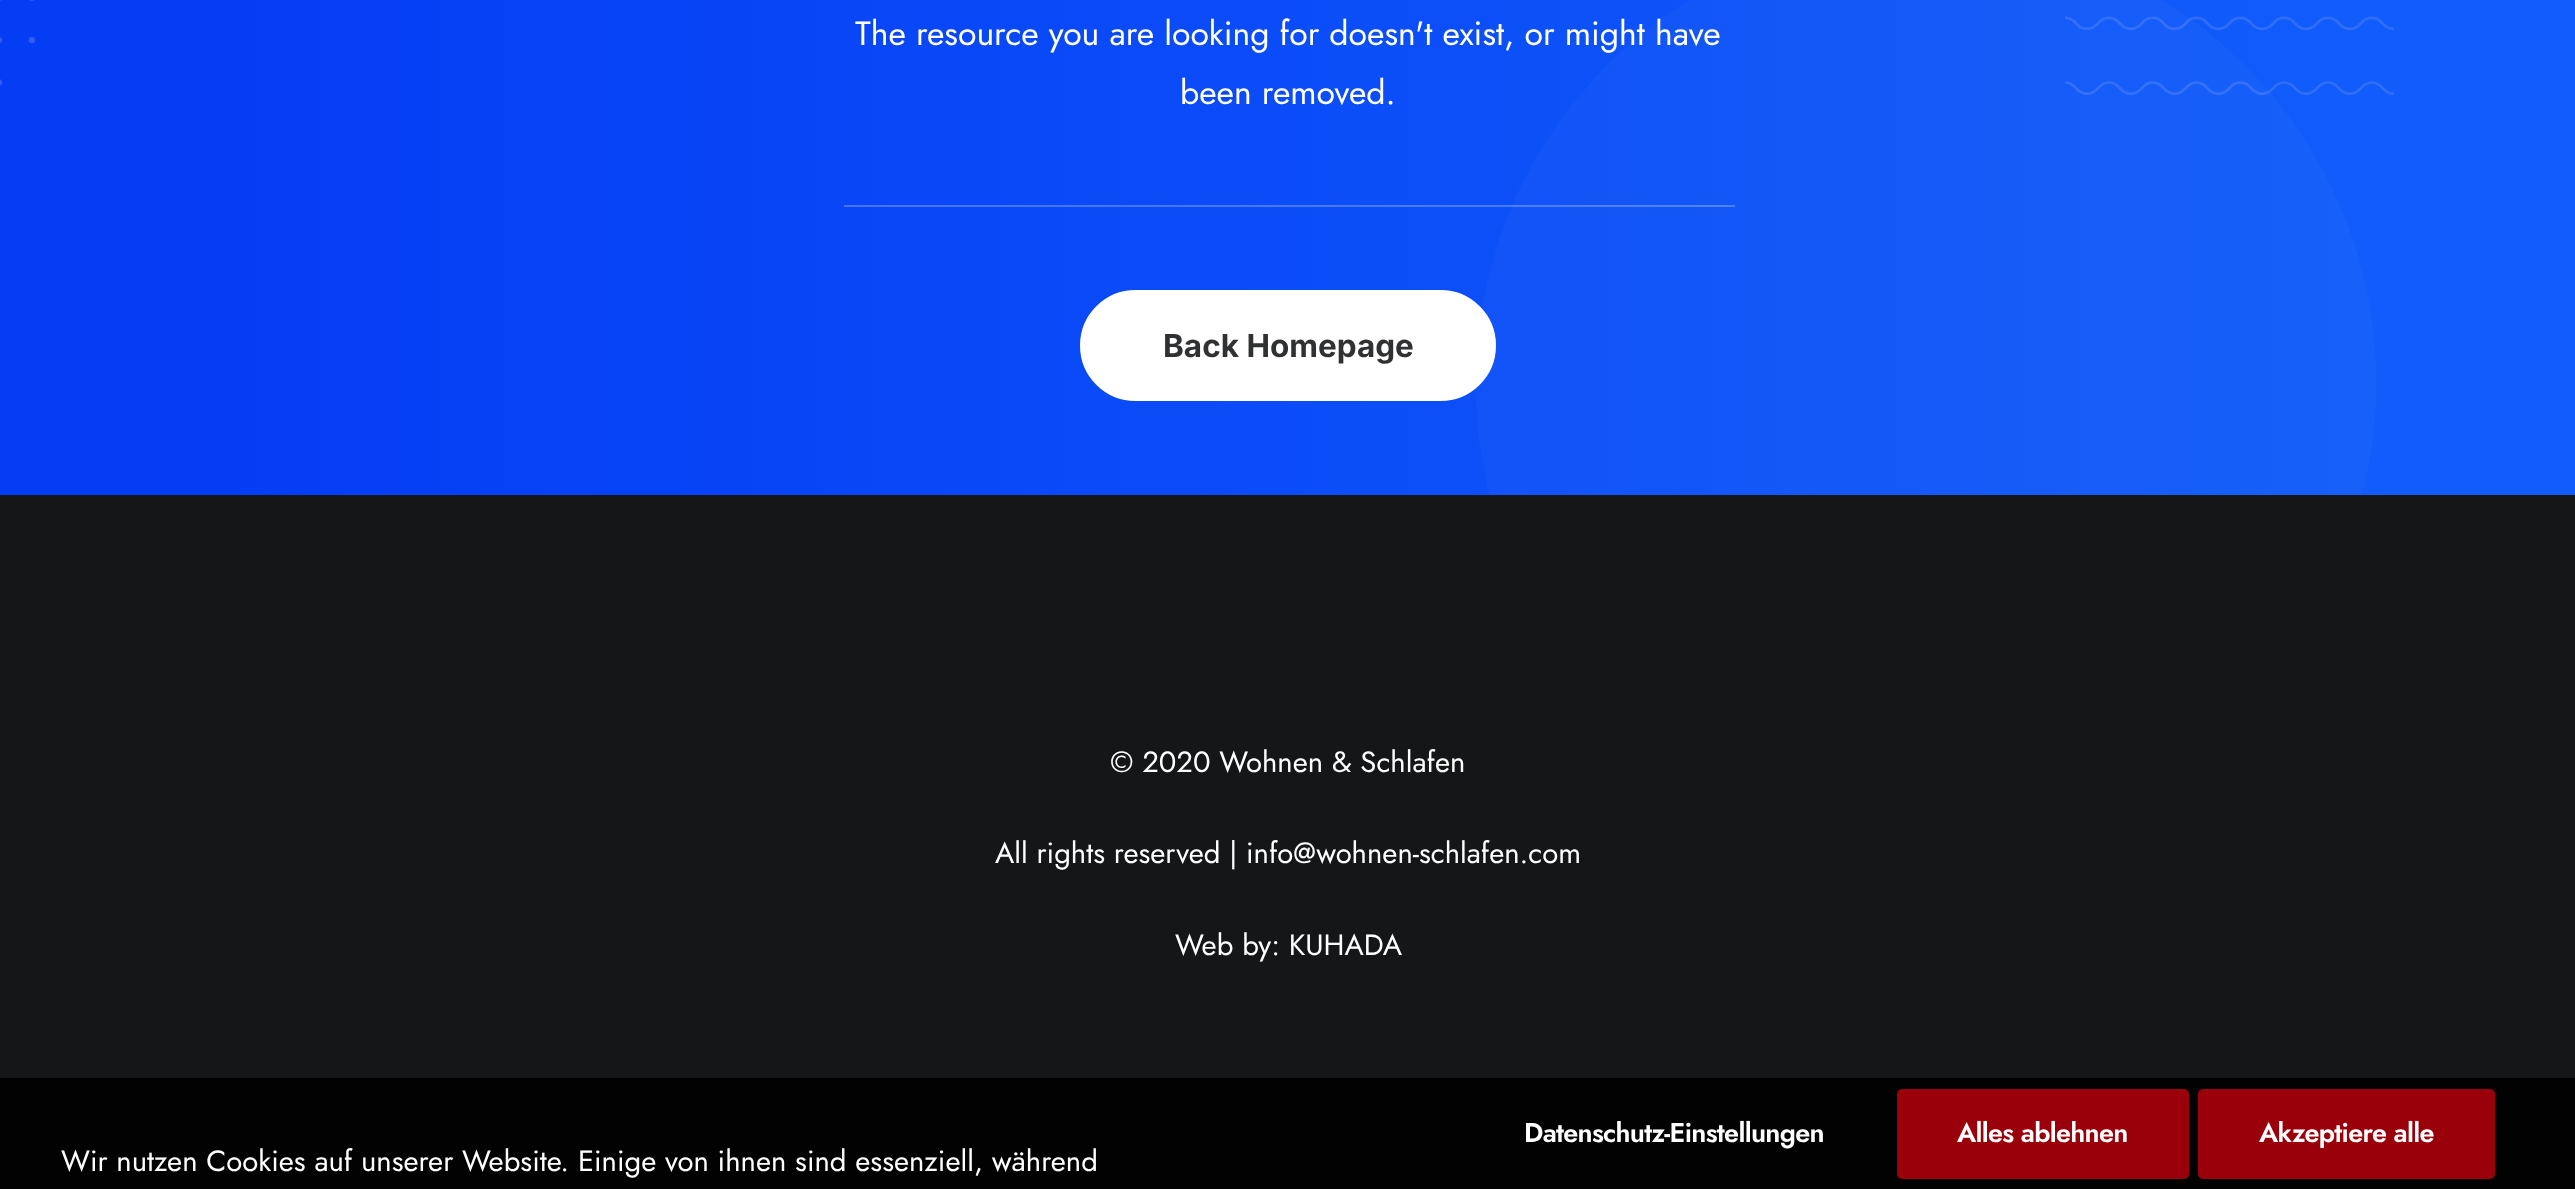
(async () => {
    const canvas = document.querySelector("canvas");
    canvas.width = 2575;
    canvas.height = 1189;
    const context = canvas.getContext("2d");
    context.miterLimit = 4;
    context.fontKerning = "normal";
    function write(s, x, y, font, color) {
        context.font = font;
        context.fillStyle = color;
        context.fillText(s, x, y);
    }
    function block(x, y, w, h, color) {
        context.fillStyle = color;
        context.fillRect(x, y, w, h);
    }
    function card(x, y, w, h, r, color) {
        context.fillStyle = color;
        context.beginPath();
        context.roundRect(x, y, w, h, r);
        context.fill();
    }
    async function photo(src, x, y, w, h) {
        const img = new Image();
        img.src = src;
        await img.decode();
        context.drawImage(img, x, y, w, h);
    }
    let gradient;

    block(0, 0, 2575, 1189, "rgb(20, 22, 24)");
    gradient = context.createLinearGradient(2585, -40, -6.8, -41);
    gradient.addColorStop(0.09, "rgb(17, 92, 250)");
    gradient.addColorStop(0.91, "rgb(5, 61, 245)");
    context.fillStyle = gradient;
    context.fillRect(0, 0, 2575, 495);
    await photo("media/1.png", 0, 0, 2394, 495);
    write("The resource you are looking for doesn't exist, or might have", 855, 45, "33.75px Jost", "rgb(255, 255, 255)");
    write("been removed.", 1180, 104, "33.75px Jost", "rgb(255, 255, 255)");
    block(844, 205, 891, 2, "rgba(255, 255, 255, 0.25)");
    context.fillStyle = "rgb(255, 255, 255)";
    context.beginPath();
    context.roundRect(1081, 291, 414, 109, 54.5);
    context.fill();
    context.strokeStyle = "rgb(255, 255, 255)";
    context.lineWidth = 2;
    context.stroke();
    write("Back Homepage", 1163, 357, "bold 31.5px Inter", "rgb(48, 49, 51)");
    write("© 2020 Wohnen & Schlafen", 1110, 772, "29.25px Jost", "rgb(255, 255, 255)");
    write("All rights reserved | info@wohnen-schlafen.com", 995, 863, "29.25px Jost", "rgb(255, 255, 255)");
    write("Web by: KUHADA", 1175, 955, "29.25px Jost", "rgb(255, 255, 255)");
    block(0, 1078, 2575, 111, "rgb(2, 2, 2)");
    context.letterSpacing = "-0.7px";
    write("Datenschutz-Einstellungen", 1524, 1142, "600 27px Jost", "rgb(255, 255, 255)");
    card(1897, 1089, 292, 90, 5, "rgb(153, 0, 10)");
    write("Alles ablehnen", 1957, 1142, "600 27px Jost", "rgb(255, 255, 255)");
    card(2198, 1089, 297, 90, 5, "rgb(153, 0, 10)");
    write("Akzeptiere alle", 2259, 1142, "600 27px Jost", "rgb(255, 255, 255)");
    context.letterSpacing = "0px";
    write("Wir nutzen Cookies auf unserer Website. Einige von ihnen sind essenziell, während", 61, 1171, "29.25px Jost", "rgb(255, 255, 255)");
})();
